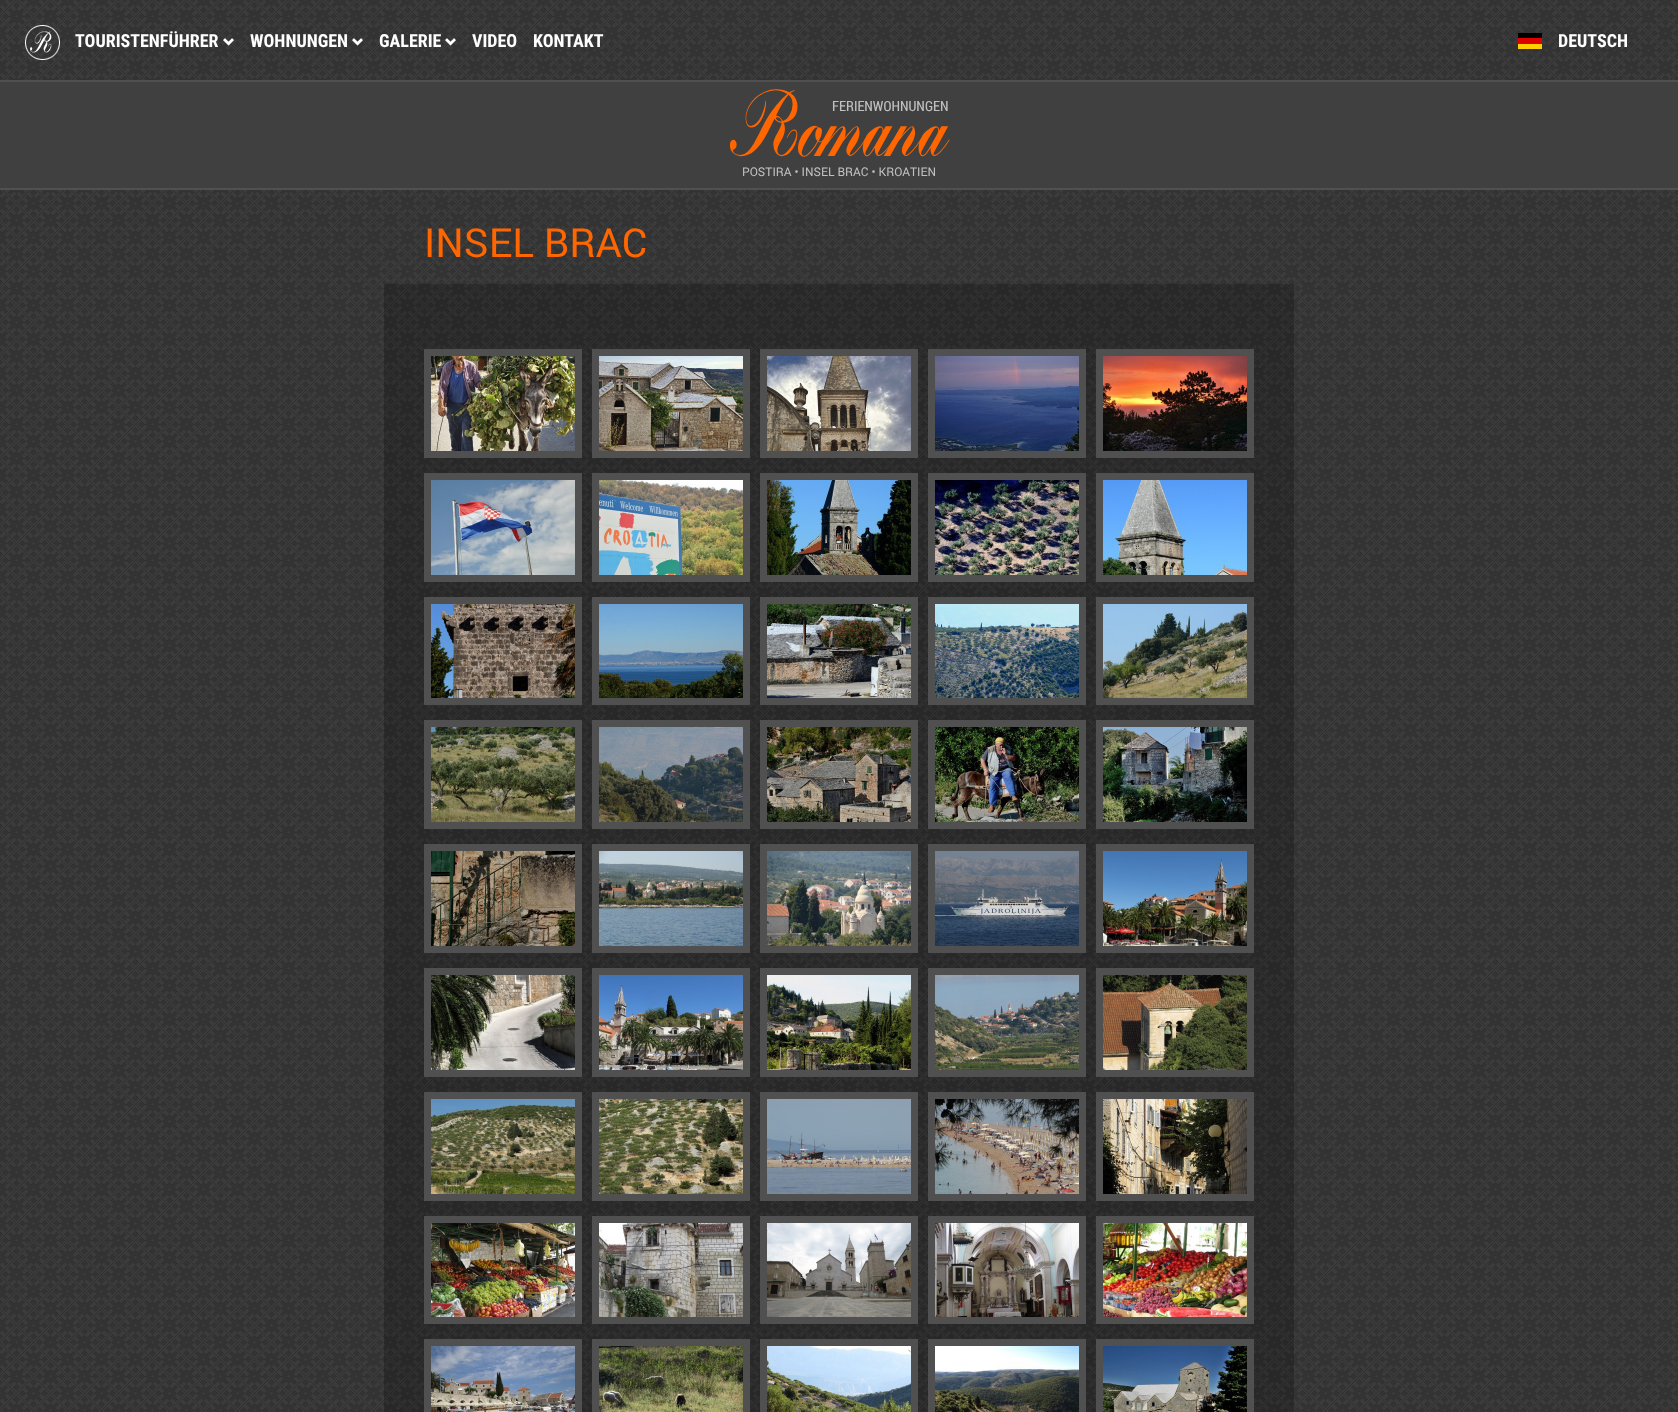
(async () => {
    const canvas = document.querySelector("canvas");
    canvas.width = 1678;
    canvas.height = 1412;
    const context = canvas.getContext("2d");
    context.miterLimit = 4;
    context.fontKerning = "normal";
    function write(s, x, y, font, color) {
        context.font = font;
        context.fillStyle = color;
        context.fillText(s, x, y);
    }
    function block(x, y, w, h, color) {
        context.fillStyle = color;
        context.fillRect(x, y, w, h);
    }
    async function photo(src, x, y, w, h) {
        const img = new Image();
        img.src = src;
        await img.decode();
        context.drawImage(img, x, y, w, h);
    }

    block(0, 0, 1678, 1412, "rgb(255, 255, 255)");
    await photo("media/1.png", 0, 190, 1678, 1222);
    block(0, 80, 1678, 2, "rgb(80, 80, 80)");
    await photo("media/2.png", 0, 0, 1678, 80);
    await photo("media/3.png", 25, 25, 35, 35);
    write("TOURISTENFÜHRER", 75, 47, "bold 18px Roboto Condensed", "rgb(255, 255, 255)");
    await photo("media/4.png", 223, 38, 11, 8);
    write("WOHNUNGEN", 250, 47, "bold 18px Roboto Condensed", "rgb(255, 255, 255)");
    await photo("media/5.png", 352, 38, 11, 8);
    write("GALERIE", 379, 47, "bold 18px Roboto Condensed", "rgb(255, 255, 255)");
    await photo("media/6.png", 445, 38, 11, 8);
    write("VIDEO", 472, 47, "bold 18px Roboto Condensed", "rgb(255, 255, 255)");
    write("KONTAKT", 533, 47, "bold 18px Roboto Condensed", "rgb(255, 255, 255)");
    await photo("media/7.png", 1518, 33, 24, 16);
    write("DEUTSCH", 1558, 47, "bold 18px Roboto Condensed", "rgb(255, 255, 255)");
    block(0, 82, 1678, 106, "rgb(64, 64, 64)");
    block(0, 188, 1678, 2, "rgb(80, 80, 80)");
    write("Romana", 730, 156, "95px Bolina", "rgb(255, 102, 0)");
    write("FERIENWOHNUNGEN", 832, 111, "14px Roboto Condensed", "rgb(192, 192, 192)");
    write("POSTIRA • INSEL BRAC • KROATIEN", 742, 176, "12px Roboto", "rgb(192, 192, 192)");
    write("INSEL BRAC", 424, 257, "40px Roboto", "rgb(255, 102, 0)");
    block(384, 284, 910, 1128, "rgba(0, 0, 0, 0.2)");
    context.strokeStyle = "rgb(80, 80, 80)";
    context.lineWidth = 7;
    context.strokeRect(427.5, 352.5, 151, 102);
    await photo("media/8.png", 431, 356, 144, 95);
    context.strokeRect(595.5, 352.5, 151, 102);
    await photo("media/9.png", 599, 356, 144, 95);
    context.strokeRect(763.5, 352.5, 151, 102);
    await photo("media/10.png", 767, 356, 144, 95);
    context.strokeRect(931.5, 352.5, 151, 102);
    await photo("media/11.png", 935, 356, 144, 95);
    context.strokeRect(1099.5, 352.5, 151, 102);
    await photo("media/12.png", 1103, 356, 144, 95);
    context.strokeRect(427.5, 476.5, 151, 102);
    await photo("media/13.png", 431, 480, 144, 95);
    context.strokeRect(595.5, 476.5, 151, 102);
    await photo("media/14.png", 599, 480, 144, 95);
    context.strokeRect(763.5, 476.5, 151, 102);
    await photo("media/15.png", 767, 480, 144, 95);
    context.strokeRect(931.5, 476.5, 151, 102);
    await photo("media/16.png", 935, 480, 144, 95);
    context.strokeRect(1099.5, 476.5, 151, 102);
    await photo("media/17.png", 1103, 480, 144, 95);
    context.strokeRect(427.5, 600.5, 151, 101);
    await photo("media/18.png", 431, 604, 144, 94);
    context.strokeRect(595.5, 600.5, 151, 101);
    await photo("media/19.png", 599, 604, 144, 94);
    context.strokeRect(763.5, 600.5, 151, 101);
    await photo("media/20.png", 767, 604, 144, 94);
    context.strokeRect(931.5, 600.5, 151, 101);
    await photo("media/21.png", 935, 604, 144, 94);
    context.strokeRect(1099.5, 600.5, 151, 101);
    await photo("media/22.png", 1103, 604, 144, 94);
    context.strokeRect(427.5, 723.5, 151, 102);
    await photo("media/23.png", 431, 727, 144, 95);
    context.strokeRect(595.5, 723.5, 151, 102);
    await photo("media/24.png", 599, 727, 144, 95);
    context.strokeRect(763.5, 723.5, 151, 102);
    await photo("media/25.png", 767, 727, 144, 95);
    context.strokeRect(931.5, 723.5, 151, 102);
    await photo("media/26.png", 935, 727, 144, 95);
    context.strokeRect(1099.5, 723.5, 151, 102);
    await photo("media/27.png", 1103, 727, 144, 95);
    context.strokeRect(427.5, 847.5, 151, 102);
    await photo("media/28.png", 431, 851, 144, 95);
    context.strokeRect(595.5, 847.5, 151, 102);
    await photo("media/29.png", 599, 851, 144, 95);
    context.strokeRect(763.5, 847.5, 151, 102);
    await photo("media/30.png", 767, 851, 144, 95);
    context.strokeRect(931.5, 847.5, 151, 102);
    await photo("media/31.png", 935, 851, 144, 95);
    context.strokeRect(1099.5, 847.5, 151, 102);
    await photo("media/32.png", 1103, 851, 144, 95);
    context.strokeRect(427.5, 971.5, 151, 102);
    await photo("media/33.png", 431, 975, 144, 95);
    context.strokeRect(595.5, 971.5, 151, 102);
    await photo("media/34.png", 599, 975, 144, 95);
    context.strokeRect(763.5, 971.5, 151, 102);
    await photo("media/35.png", 767, 975, 144, 95);
    context.strokeRect(931.5, 971.5, 151, 102);
    await photo("media/36.png", 935, 975, 144, 95);
    context.strokeRect(1099.5, 971.5, 151, 102);
    await photo("media/37.png", 1103, 975, 144, 95);
    context.strokeRect(427.5, 1095.5, 151, 102);
    await photo("media/38.png", 431, 1099, 144, 95);
    context.strokeRect(595.5, 1095.5, 151, 102);
    await photo("media/39.png", 599, 1099, 144, 95);
    context.strokeRect(763.5, 1095.5, 151, 102);
    await photo("media/40.png", 767, 1099, 144, 95);
    context.strokeRect(931.5, 1095.5, 151, 102);
    await photo("media/41.png", 935, 1099, 144, 95);
    context.strokeRect(1099.5, 1095.5, 151, 102);
    await photo("media/42.png", 1103, 1099, 144, 95);
    context.strokeRect(427.5, 1219.5, 151, 101);
    await photo("media/43.png", 431, 1223, 144, 94);
    context.strokeRect(595.5, 1219.5, 151, 101);
    await photo("media/44.png", 599, 1223, 144, 94);
    context.strokeRect(763.5, 1219.5, 151, 101);
    await photo("media/45.png", 767, 1223, 144, 94);
    context.strokeRect(931.5, 1219.5, 151, 101);
    await photo("media/46.png", 935, 1223, 144, 94);
    context.strokeRect(1099.5, 1219.5, 151, 101);
    await photo("media/47.png", 1103, 1223, 144, 94);
    context.strokeRect(427.5, 1342.5, 151, 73);
    await photo("media/48.png", 431, 1346, 144, 66);
    context.strokeRect(595.5, 1342.5, 151, 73);
    await photo("media/49.png", 599, 1346, 144, 66);
    context.strokeRect(763.5, 1342.5, 151, 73);
    await photo("media/50.png", 767, 1346, 144, 66);
    context.strokeRect(931.5, 1342.5, 151, 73);
    await photo("media/51.png", 935, 1346, 144, 66);
    context.strokeRect(1099.5, 1342.5, 151, 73);
    await photo("media/52.png", 1103, 1346, 144, 66);
})();
